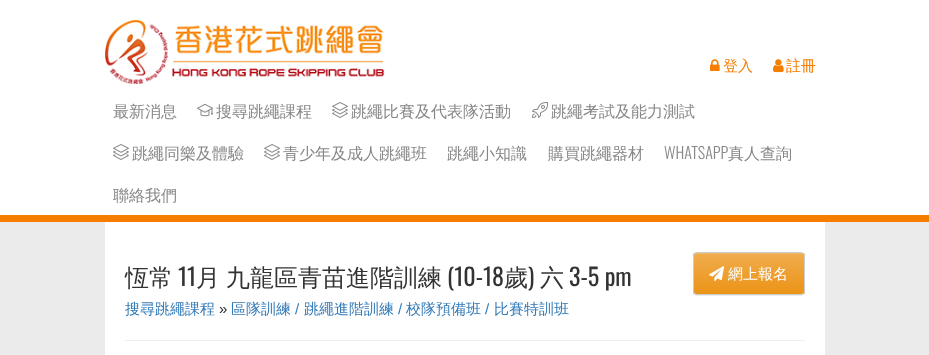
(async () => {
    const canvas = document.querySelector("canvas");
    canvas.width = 929;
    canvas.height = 355;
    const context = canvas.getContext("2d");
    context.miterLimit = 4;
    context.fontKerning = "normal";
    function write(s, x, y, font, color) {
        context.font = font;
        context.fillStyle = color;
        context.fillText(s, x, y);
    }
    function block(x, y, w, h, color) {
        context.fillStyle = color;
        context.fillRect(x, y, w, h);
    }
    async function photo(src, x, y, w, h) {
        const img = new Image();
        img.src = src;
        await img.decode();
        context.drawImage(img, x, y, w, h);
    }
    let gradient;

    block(0, 0, 929, 355, "rgb(235, 235, 235)");
    block(0, 0, 929, 215, "rgb(255, 255, 255)");
    block(0, 215, 929, 7, "rgb(245, 125, 0)");
    await photo("media/1.png", 105, 20, 280, 64);
    await photo("media/2.png", 710, 59, 10, 12);
    write("登入", 723, 71, "500 15px WenQuanYi Zen Hei", "rgb(245, 125, 0)");
    await photo("media/3.png", 773, 59, 11, 14);
    write("註冊", 786, 71, "500 15px WenQuanYi Zen Hei", "rgb(245, 125, 0)");
    write("最新消息", 113, 117, "500 16px WenQuanYi Zen Hei", "rgb(135, 135, 135)");
    await photo("media/4.png", 197, 103, 16, 14);
    write("搜尋跳繩課程", 216, 117, "500 16px WenQuanYi Zen Hei", "rgb(135, 135, 135)");
    await photo("media/5.png", 332, 102, 16, 16);
    write("跳繩比賽及代表隊活動", 351, 117, "500 16px WenQuanYi Zen Hei", "rgb(135, 135, 135)");
    await photo("media/6.png", 532, 102, 16, 16);
    write("跳繩考試及能力測試", 551, 117, "500 16px WenQuanYi Zen Hei", "rgb(135, 135, 135)");
    await photo("media/5.png", 113, 144, 16, 16);
    write("跳繩同樂及體驗", 132, 159, "500 16px WenQuanYi Zen Hei", "rgb(135, 135, 135)");
    await photo("media/5.png", 264, 144, 16, 16);
    write("青少年及成人跳繩班", 283, 159, "500 16px WenQuanYi Zen Hei", "rgb(135, 135, 135)");
    write("跳繩小知識", 447, 159, "500 16px WenQuanYi Zen Hei", "rgb(135, 135, 135)");
    write("購買跳繩器材", 548, 159, "500 16px WenQuanYi Zen Hei", "rgb(135, 135, 135)");
    write("WHATSAPP", 664, 159, "300 16px Oswald", "rgb(135, 135, 135)");
    write("真人查詢", 728, 159, "500 16px WenQuanYi Zen Hei", "rgb(135, 135, 135)");
    write("聯絡我們", 113, 201, "500 16px WenQuanYi Zen Hei", "rgb(135, 135, 135)");
    block(105, 222, 720, 133, "rgb(255, 255, 255)");
    write("恆常", 125, 286, "500 24px WenQuanYi Zen Hei", "rgb(51, 51, 51)");
    write("11", 178, 286, "24px Oswald", "rgb(51, 51, 51)");
    write("月", 196, 286, "500 24px WenQuanYi Zen Hei", "rgb(51, 51, 51)");
    write("九龍區青苗進階訓練", 226, 286, "500 24px WenQuanYi Zen Hei", "rgb(51, 51, 51)");
    write("(10-18", 447, 286, "24px Oswald", "rgb(51, 51, 51)");
    write("歲", 504, 286, "500 24px WenQuanYi Zen Hei", "rgb(51, 51, 51)");
    write(")", 528, 286, "24px Oswald", "rgb(51, 51, 51)");
    write("六", 540, 286, "500 24px WenQuanYi Zen Hei", "rgb(51, 51, 51)");
    write("3-5 pm", 569, 286, "24px Oswald", "rgb(51, 51, 51)");
    write("搜尋跳繩課程", 125, 314, "500 15px WenQuanYi Zen Hei", "rgb(51, 122, 183)");
    write("»", 219, 314, "15px Liberation Sans", "rgb(51, 51, 51)");
    write("區隊訓練", 231, 314, "500 15px WenQuanYi Zen Hei", "rgb(51, 122, 183)");
    write("/", 295, 314, "15px Liberation Sans", "rgb(51, 122, 183)");
    write("跳繩進階訓練", 304, 314, "500 15px WenQuanYi Zen Hei", "rgb(51, 122, 183)");
    write("/", 398, 314, "15px Liberation Sans", "rgb(51, 122, 183)");
    write("校隊預備班", 406, 314, "500 15px WenQuanYi Zen Hei", "rgb(51, 122, 183)");
    write("/", 485, 314, "15px Liberation Sans", "rgb(51, 122, 183)");
    write("比賽特訓班", 494, 314, "500 15px WenQuanYi Zen Hei", "rgb(51, 122, 183)");
    context.fillStyle = "rgba(0, 0, 0, 0.07)";
    context.filter = "blur(0.5px)";
    context.beginPath();
    context.roundRect(693, 253, 112, 43, 4);
    context.fill();
    context.filter = "none";
    context.save();
    context.beginPath();
    context.roundRect(693, 252, 112, 43, 4);
    context.clip();
    gradient = context.createLinearGradient(749, 253, 749, 294);
    gradient.addColorStop(0, "rgb(240, 173, 78)");
    gradient.addColorStop(1, "rgb(235, 147, 22)");
    context.fillStyle = gradient;
    context.fillRect(693, 253, 112, 41);
    context.restore();
    context.fillStyle = "rgba(255, 255, 255, 0.15)";
    context.beginPath();
    context.moveTo(697, 254);
    context.lineTo(801, 254);
    context.bezierCurveTo(803, 254, 804, 255, 804, 257);
    context.bezierCurveTo(804, 248, 786, 253, 784, 253);
    context.lineTo(714, 253);
    context.bezierCurveTo(712, 253, 694, 248, 694, 257);
    context.bezierCurveTo(694, 255, 695, 254, 697, 254);
    context.closePath();
    context.fill();
    context.beginPath();
    context.roundRect(693.5, 252.5, 111, 42, 3.5);
    context.strokeStyle = "rgb(204, 204, 204)";
    context.stroke();
    await photo("media/7.png", 709, 266, 15, 16);
    write("網上報名", 728, 279, "500 15px WenQuanYi Zen Hei", "rgb(255, 255, 255)");
    block(125, 340, 680, 1, "rgb(239, 239, 239)");
})();
